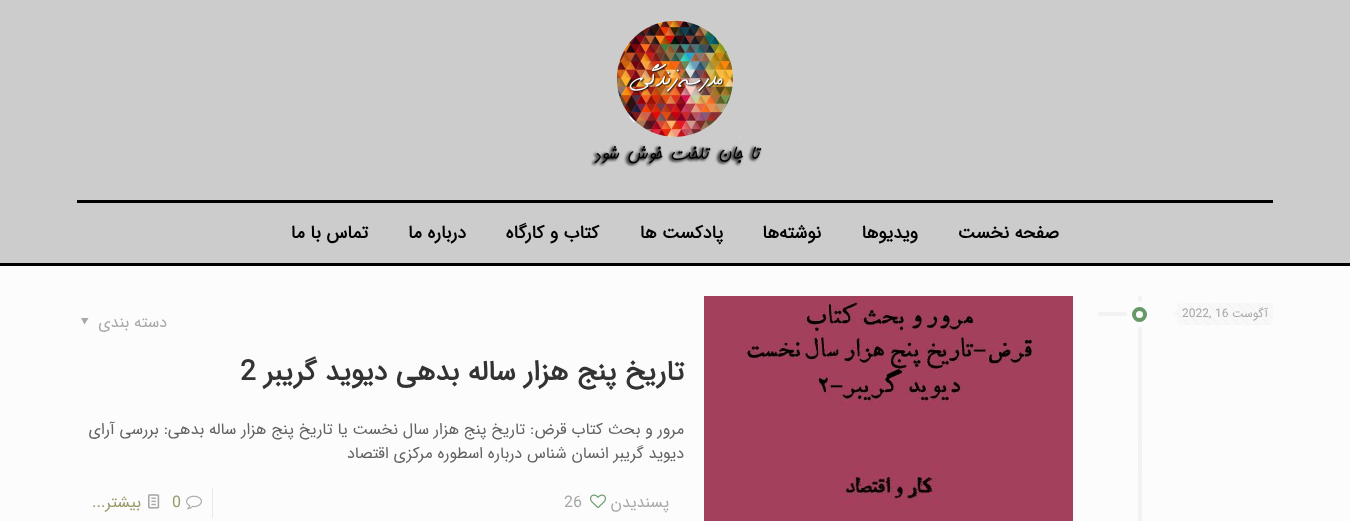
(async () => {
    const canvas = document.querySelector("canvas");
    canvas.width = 1350;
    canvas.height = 521;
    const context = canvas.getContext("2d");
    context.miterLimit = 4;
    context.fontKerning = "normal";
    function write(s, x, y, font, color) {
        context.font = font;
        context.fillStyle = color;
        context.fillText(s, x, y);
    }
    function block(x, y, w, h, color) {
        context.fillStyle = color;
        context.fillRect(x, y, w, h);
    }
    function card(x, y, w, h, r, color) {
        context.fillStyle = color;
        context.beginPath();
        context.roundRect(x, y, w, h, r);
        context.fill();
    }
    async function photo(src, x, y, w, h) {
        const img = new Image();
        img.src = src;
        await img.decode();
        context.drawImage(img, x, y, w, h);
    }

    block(0, 0, 1350, 521, "rgb(252, 252, 252)");
    block(0, 0, 1350, 263, "rgb(204, 204, 204)");
    block(0, 263, 1350, 3, "rgb(0, 0, 0)");
    block(77, 200, 1196, 3, "rgb(0, 0, 0)");
    await photo("media/1.png", 590, 20, 172, 147);
    context.direction = "rtl";
    write("صفحه نخست", 1059, 238, "bold 18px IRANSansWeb", "rgb(0, 0, 0)");
    write("ویدیوها", 918, 238, "bold 18px IRANSansWeb", "rgb(0, 0, 0)");
    write("نوشته‌ها", 821, 238, "bold 18px IRANSansWeb", "rgb(0, 0, 0)");
    write("پادکست ها", 723, 238, "bold 18px IRANSansWeb", "rgb(0, 0, 0)");
    write("کتاب و کارگاه", 599, 238, "bold 18px IRANSansWeb", "rgb(0, 0, 0)");
    write("درباره ما", 466, 238, "bold 18px IRANSansWeb", "rgb(0, 0, 0)");
    write("تماس با ما", 368, 238, "bold 18px IRANSansWeb", "rgb(0, 0, 0)");
    await photo("media/2.png", 1098, 296, 44, 225);
    card(1177, 303, 96, 22, 4, "rgb(248, 248, 248)");
    await photo("media/3.png", 1177, 303, 96, 22);
    write("آگوست", 1268, 317, "12px IRANSansWeb", "rgb(168, 168, 168)");
    context.direction = "ltr";
    write("2022, 16", 1182, 317, "12px IRANSansWeb", "rgb(168, 168, 168)");
    context.fillStyle = "rgb(248, 248, 248)";
    context.beginPath();
    context.moveTo(1177, 309);
    context.lineTo(1177, 319);
    context.lineTo(1172, 314);
    context.closePath();
    context.fill();
    context.beginPath();
    context.arc(1139.5, 314.5, 5.5, 0, Math.PI * 2);
    context.strokeStyle = "rgb(102, 153, 102)";
    context.lineWidth = 4;
    context.stroke();
    await photo("media/4.png", 704, 296, 369, 225);
    context.direction = "rtl";
    write("دسته بندی", 167, 327, "16px IRANSansWeb", "rgb(168, 168, 168)");
    context.beginPath();
    context.moveTo(88.5, 318);
    context.lineTo(84.5, 324.5);
    context.lineTo(81, 318);
    context.closePath();
    context.fill();
    write("تاریخ پنج هزار ساله بدهی دیوید گریبر", 684, 380, "bold 28px IRANSansWeb", "rgb(51, 51, 51)");
    context.direction = "ltr";
    write("2", 240, 380, "bold 28px IRANSansWeb", "rgb(51, 51, 51)");
    context.direction = "rtl";
    write("مرور و بحث کتاب قرض: تاریخ پنج هزار سال نخست یا تاریخ پنج هزار ساله بدهی: بررسی آرای", 684, 434, "16px IRANSansWeb", "rgb(98, 98, 98)");
    write("دیوید گریبر انسان شناس درباره اسطوره مرکزی اقتصاد", 684, 458, "16px IRANSansWeb", "rgb(98, 98, 98)");
    write("پسندیدن", 669, 507, "16px IRANSansWeb", "rgb(168, 168, 168)");
    await photo("media/5.png", 590, 494, 16, 15);
    context.direction = "ltr";
    write("26", 564, 507, "16px IRANSansWeb", "rgb(168, 168, 168)");
    block(212, 488, 1, 30, "rgb(232, 232, 232)");
    await photo("media/6.png", 186, 495, 16, 15);
    write("0", 172, 507, "16px IRANSansWeb", "rgb(153, 153, 102)");
    await photo("media/7.png", 148, 494, 12, 15);
    context.direction = "rtl";
    write("بیشتر...", 141, 507, "16px IRANSansWeb", "rgb(153, 153, 102)");
})();
